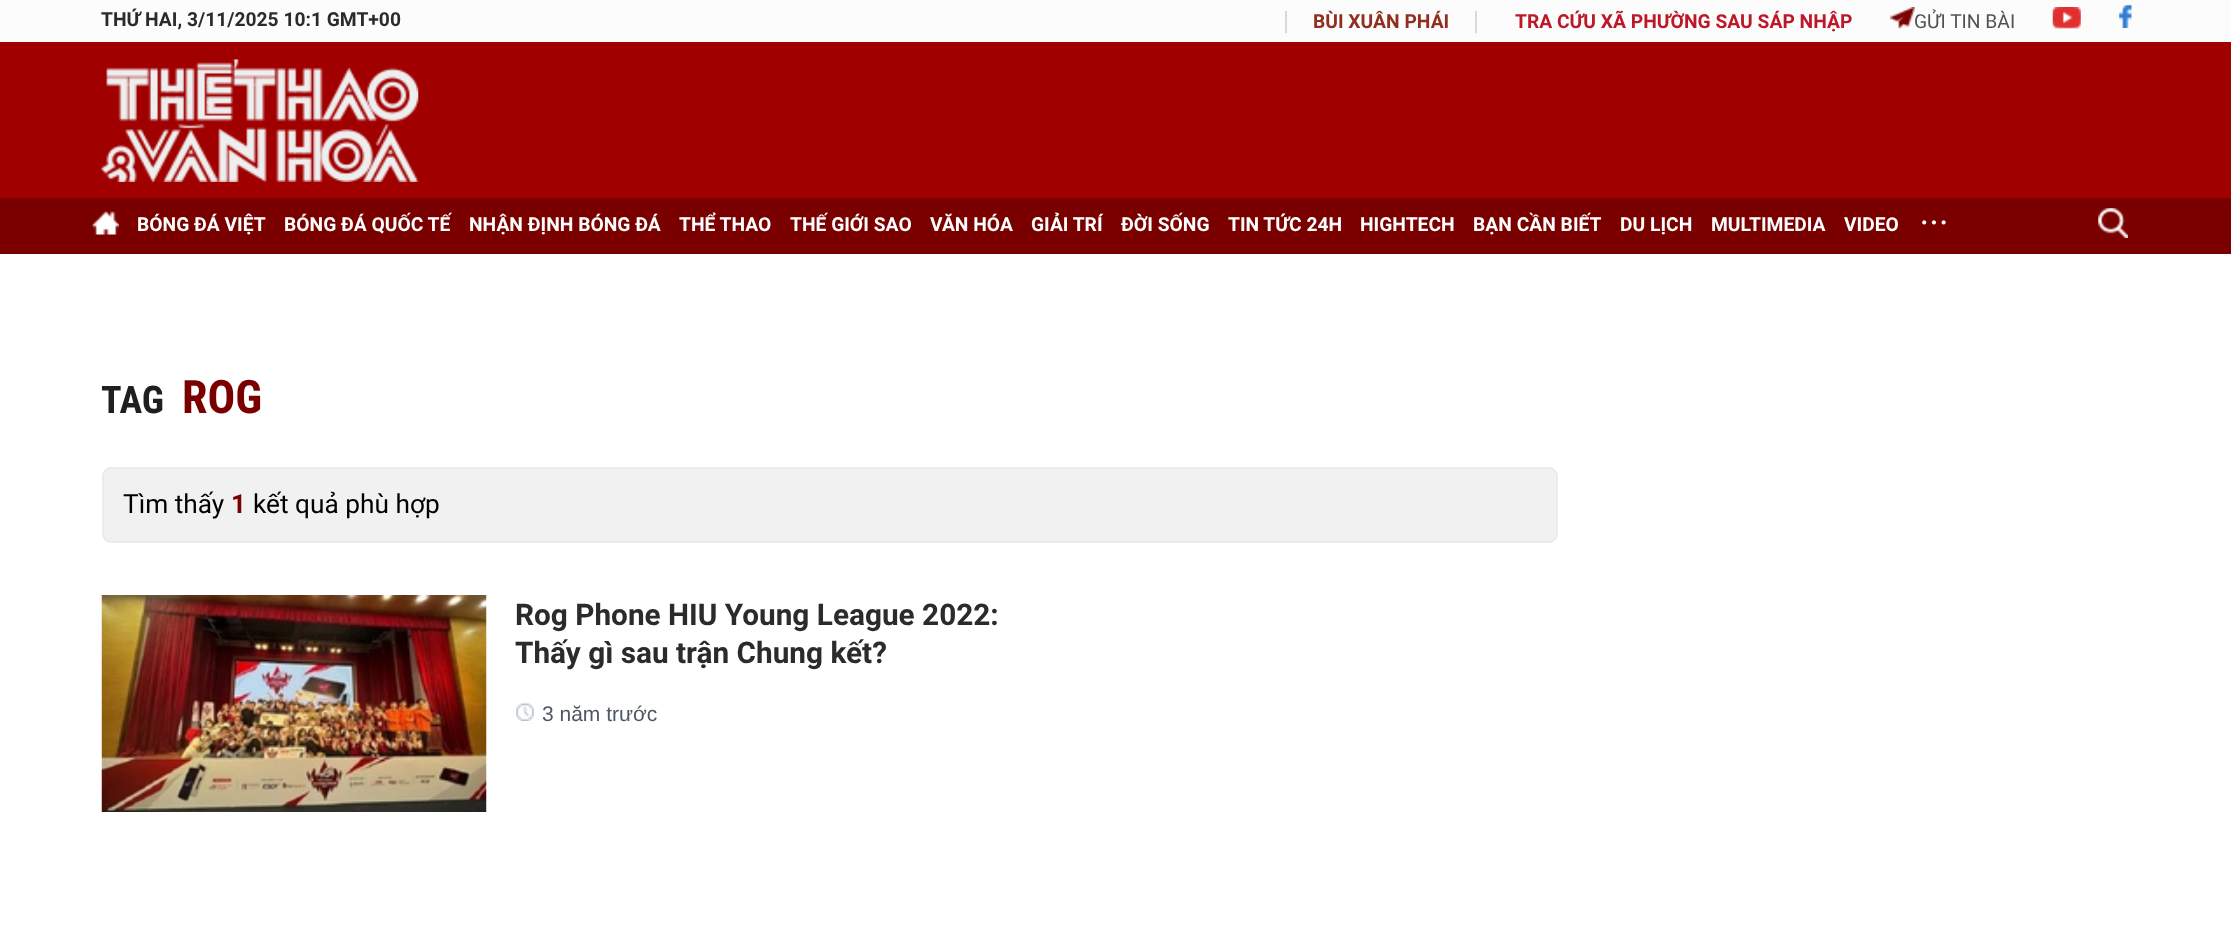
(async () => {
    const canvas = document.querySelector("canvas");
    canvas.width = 2231;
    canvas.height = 937;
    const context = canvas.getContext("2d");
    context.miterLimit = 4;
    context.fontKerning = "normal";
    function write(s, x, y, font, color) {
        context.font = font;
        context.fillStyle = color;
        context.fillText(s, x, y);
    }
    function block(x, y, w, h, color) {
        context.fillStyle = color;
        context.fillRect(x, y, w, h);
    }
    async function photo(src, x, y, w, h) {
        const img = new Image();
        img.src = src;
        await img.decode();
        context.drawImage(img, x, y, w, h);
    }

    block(0, 0, 2231, 937, "rgb(255, 255, 255)");
    block(0, 0, 2231, 42, "rgb(252, 252, 252)");
    write("THỨ HAI, 3/11/2025 10:1 GMT+00", 101, 26, "bold 19.25px Roboto", "rgb(43, 43, 43)");
    block(1475, 11, 2, 22, "rgb(216, 216, 216)");
    block(1285, 11, 2, 22, "rgb(216, 216, 216)");
    write("BÙI XUÂN PHÁI", 1313, 28, "bold 19.25px Roboto", "rgb(144, 47, 31)");
    write("TRA CỨU XÃ PHƯỜNG SAU SÁP NHẬP", 1515, 28, "bold 19.25px Roboto", "rgb(189, 23, 40)");
    await photo("media/1.png", 1890, 7, 25, 22);
    write("GỬI TIN BÀI", 1914, 28, "19.25px Roboto", "rgb(82, 82, 82)");
    await photo("media/2.png", 2052, 7, 29, 22);
    await photo("media/3.png", 2119, 5, 13, 23);
    block(0, 42, 2231, 156, "rgb(161, 0, 0)");
    await photo("media/4.png", 101, 59, 318, 123);
    block(0, 198, 2231, 56, "rgb(122, 0, 0)");
    await photo("media/5.png", 92, 211, 27, 24);
    write("BÓNG ĐÁ VIỆT", 137, 231, "bold 19.25px Roboto", "rgb(255, 255, 255)");
    write("BÓNG ĐÁ QUỐC TẾ", 284, 231, "bold 19.25px Roboto", "rgb(255, 255, 255)");
    write("NHẬN ĐỊNH BÓNG ĐÁ", 469, 231, "bold 19.25px Roboto", "rgb(255, 255, 255)");
    write("THỂ THAO", 679, 231, "bold 19.25px Roboto", "rgb(255, 255, 255)");
    write("THẾ GIỚI SAO", 790, 231, "bold 19.25px Roboto", "rgb(255, 255, 255)");
    write("VĂN HÓA", 930, 231, "bold 19.25px Roboto", "rgb(255, 255, 255)");
    write("GIẢI TRÍ", 1031, 231, "bold 19.25px Roboto", "rgb(255, 255, 255)");
    write("ĐỜI SỐNG", 1121, 231, "bold 19.25px Roboto", "rgb(255, 255, 255)");
    write("TIN TỨC 24H", 1228, 231, "bold 19.25px Roboto", "rgb(255, 255, 255)");
    write("HIGHTECH", 1360, 231, "bold 19.25px Roboto", "rgb(255, 255, 255)");
    write("BẠN CẦN BIẾT", 1473, 231, "bold 19.25px Roboto", "rgb(255, 255, 255)");
    write("DU LỊCH", 1620, 231, "bold 19.25px Roboto", "rgb(255, 255, 255)");
    write("MULTIMEDIA", 1711, 231, "bold 19.25px Roboto", "rgb(255, 255, 255)");
    write("VIDEO", 1844, 231, "bold 19.25px Roboto", "rgb(255, 255, 255)");
    await photo("media/6.png", 1922, 220, 24, 5);
    await photo("media/7.png", 2098, 208, 30, 30);
    write("TAG", 101, 413, "bold 38px Roboto Condensed", "rgb(31, 31, 31)");
    write("ROG", 182, 413, "bold 46px Roboto Condensed", "rgb(122, 0, 0)");
    context.fillStyle = "rgb(241, 241, 241)";
    context.beginPath();
    context.roundRect(103, 468, 1454, 74, 8);
    context.fill();
    context.strokeStyle = "rgb(235, 235, 235)";
    context.lineWidth = 2;
    context.stroke();
    write("Tìm thấy", 123, 513, "26.25px Roboto", "rgb(0, 0, 0)");
    write("1", 231, 513, "bold 26.25px Roboto", "rgb(122, 0, 0)");
    write("kết quả phù hợp", 253, 513, "26.25px Roboto", "rgb(0, 0, 0)");
    await photo("media/8.png", 101, 595, 386, 217);
    write("Rog Phone HIU Young League 2022:", 515, 625, "bold 29.75px Roboto", "rgb(43, 43, 43)");
    write("Thấy gì sau trận Chung kết?", 515, 663, "bold 29.75px Roboto", "rgb(43, 43, 43)");
    await photo("media/9.png", 516, 703, 18, 18);
    write("3 năm trước", 542, 721, "21px Liberation Sans", "rgb(78, 87, 101)");
})();
